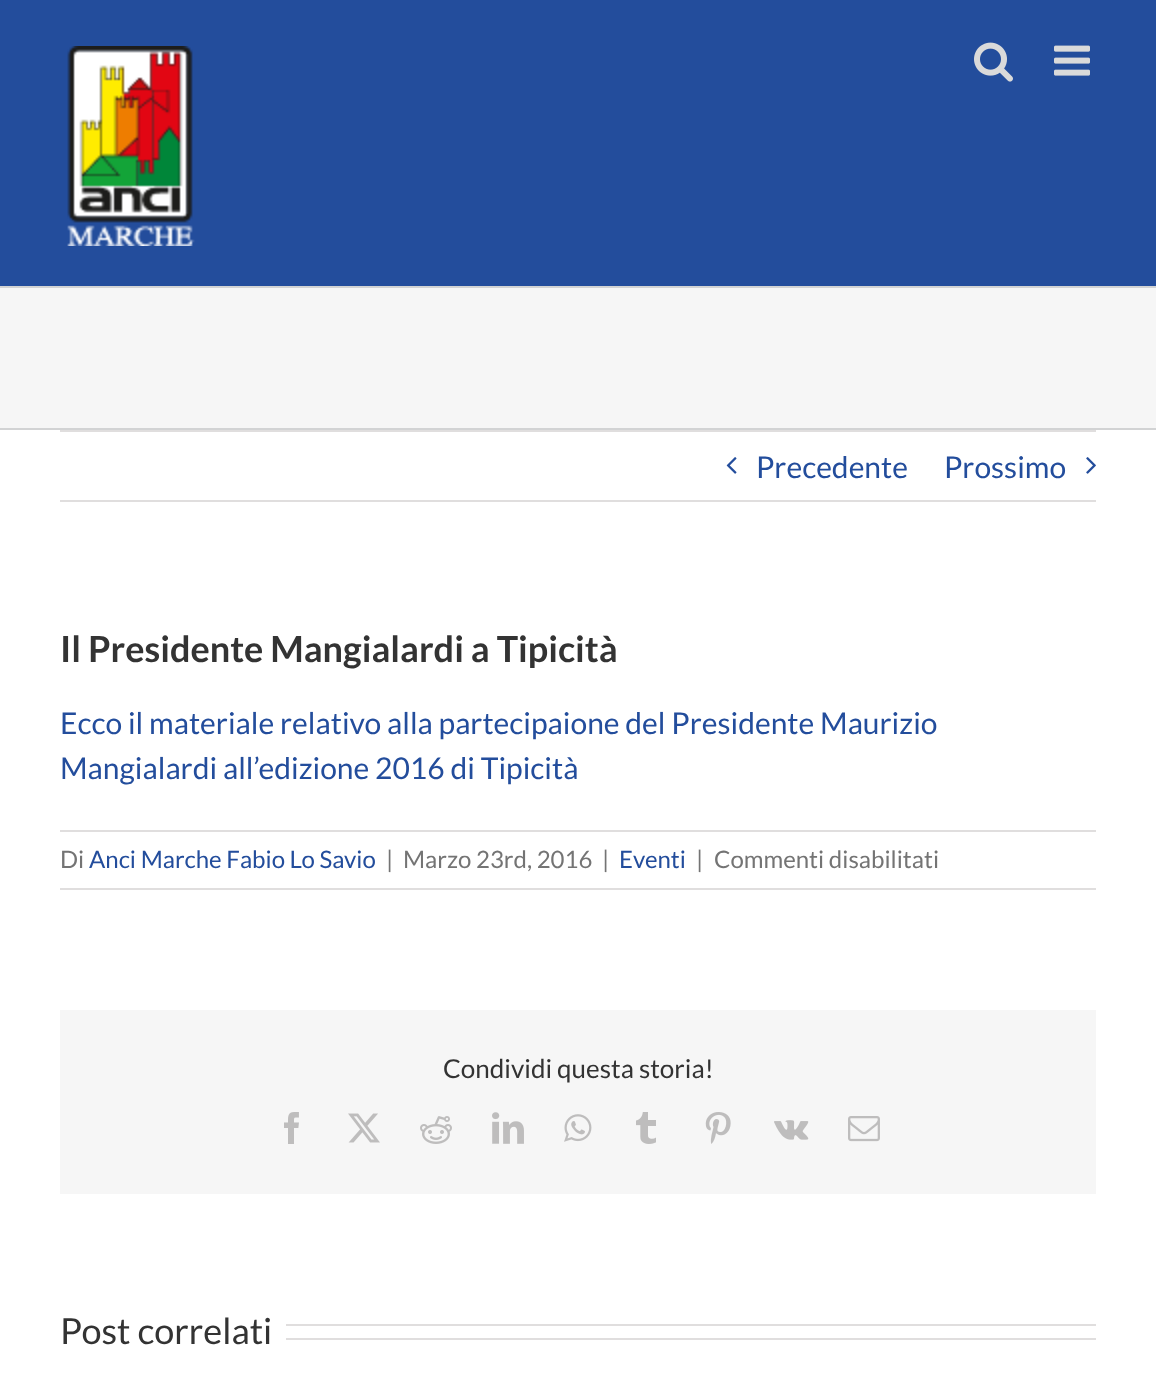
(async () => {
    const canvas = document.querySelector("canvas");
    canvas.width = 1156;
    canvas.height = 1388;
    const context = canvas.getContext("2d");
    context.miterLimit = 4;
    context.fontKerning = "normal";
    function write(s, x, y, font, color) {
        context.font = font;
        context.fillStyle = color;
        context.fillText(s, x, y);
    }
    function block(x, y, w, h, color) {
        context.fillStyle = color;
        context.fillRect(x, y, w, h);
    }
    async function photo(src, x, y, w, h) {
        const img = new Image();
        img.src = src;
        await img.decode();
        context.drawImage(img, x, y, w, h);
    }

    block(0, 0, 1156, 1388, "rgb(255, 255, 255)");
    block(0, 0, 1156, 286, "rgb(35, 77, 156)");
    await photo("media/1.png", 67, 46, 128, 200);
    await photo("media/2.png", 974, 42, 39, 40);
    await photo("media/3.png", 1054, 45, 36, 31);
    block(0, 288, 1156, 140, "rgb(246, 246, 246)");
    block(0, 286, 1156, 2, "rgb(210, 211, 212)");
    block(0, 428, 1156, 2, "rgb(210, 211, 212)");
    block(60, 430, 1036, 2, "rgb(224, 222, 222)");
    block(60, 500, 1036, 2, "rgb(224, 222, 222)");
    await photo("media/4.png", 726, 457, 11, 17);
    write("Precedente", 756, 478, "30px Lato", "rgb(35, 77, 156)");
    write("Prossimo", 944, 478, "30px Lato", "rgb(35, 77, 156)");
    await photo("media/5.png", 1086, 457, 10, 17);
    write("Il Presidente Mangialardi a Tipicità", 60, 662, "bold 36px Lato", "rgb(51, 51, 51)");
    write("Ecco il materiale relativo alla partecipaione del Presidente Maurizio", 60, 734, "30px Lato", "rgb(35, 77, 156)");
    write("Mangialardi all’edizione 2016 di Tipicità", 60, 779, "30px Lato", "rgb(35, 77, 156)");
    block(60, 830, 1036, 2, "rgb(224, 222, 222)");
    block(60, 888, 1036, 2, "rgb(224, 222, 222)");
    write("Di", 60, 868, "24px Lato", "rgb(116, 116, 116)");
    write("Anci Marche Fabio Lo Savio", 89, 868, "24px Lato", "rgb(35, 77, 156)");
    write("|", 386, 868, "24px Lato", "rgb(116, 116, 116)");
    write("Marzo 23rd, 2016", 403, 868, "24px Lato", "rgb(116, 116, 116)");
    write("|", 602, 868, "24px Lato", "rgb(116, 116, 116)");
    write("Eventi", 619, 868, "24px Lato", "rgb(35, 77, 156)");
    write("|", 696, 868, "24px Lato", "rgb(116, 116, 116)");
    write("Commenti disabilitati", 714, 868, "24px Lato", "rgb(116, 116, 116)");
    block(60, 1010, 1036, 184, "rgb(246, 246, 246)");
    write("Condividi questa storia!", 443, 1078, "26px Lato", "rgb(51, 51, 51)");
    await photo("media/6.png", 284, 1112, 15, 32);
    await photo("media/7.png", 348, 1113, 32, 30);
    await photo("media/8.png", 420, 1116, 32, 28);
    await photo("media/9.png", 492, 1112, 32, 32);
    await photo("media/10.png", 564, 1114, 28, 28);
    await photo("media/11.png", 636, 1112, 20, 32);
    await photo("media/12.png", 705, 1112, 26, 32);
    await photo("media/13.png", 774, 1120, 35, 20);
    await photo("media/14.png", 848, 1116, 32, 26);
    write("Post correlati", 60, 1344, "36px Lato", "rgb(51, 51, 51)");
    block(286, 1324, 810, 2, "rgb(224, 222, 222)");
    block(286, 1338, 810, 2, "rgb(224, 222, 222)");
})();
